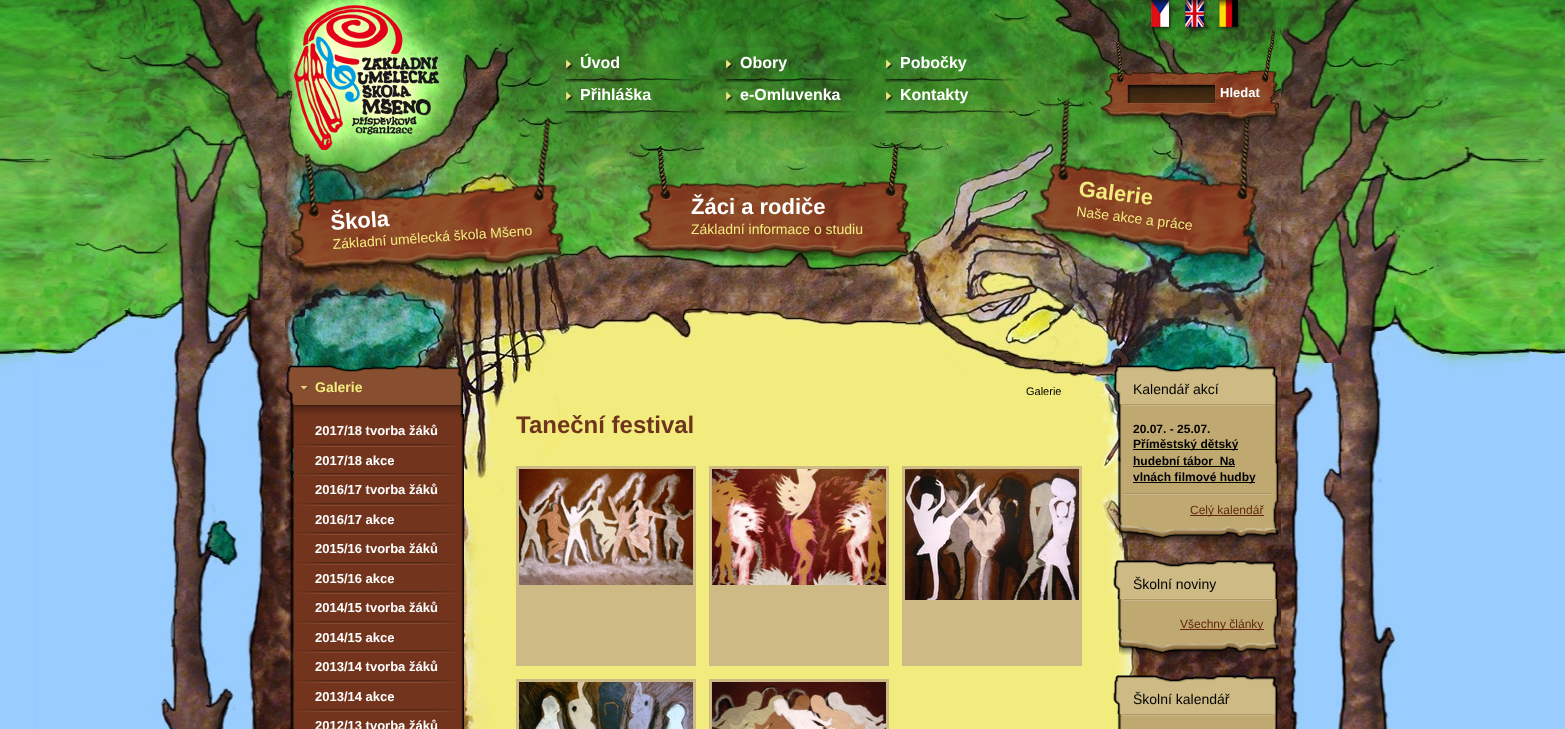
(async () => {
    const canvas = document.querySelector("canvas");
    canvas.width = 1565;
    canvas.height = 729;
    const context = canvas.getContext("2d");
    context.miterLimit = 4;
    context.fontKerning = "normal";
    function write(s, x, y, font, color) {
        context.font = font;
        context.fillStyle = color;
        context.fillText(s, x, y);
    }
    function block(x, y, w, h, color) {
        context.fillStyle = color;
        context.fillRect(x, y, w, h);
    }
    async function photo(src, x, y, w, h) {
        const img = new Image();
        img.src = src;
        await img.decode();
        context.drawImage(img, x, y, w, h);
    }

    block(0, 0, 1565, 729, "rgb(153, 204, 255)");
    await photo("media/1.png", 0, 363, 1505, 366);
    await photo("media/2.png", 0, 0, 1565, 363);
    await photo("media/3.png", 285, 461, 996, 268);
    await photo("media/4.png", 285, 0, 996, 363);
    await photo("media/23.png", 288, 117, 276, 161);
    await photo("media/5.png", 294, 5, 145, 145);
    await photo("media/6.png", 565, 78, 130, 4);
    await photo("media/7.png", 566, 59, 7, 11);
    write("Úvod", 580, 68, "bold 16px Liberation Sans", "rgb(255, 255, 255)");
    await photo("media/8.png", 725, 78, 130, 4);
    await photo("media/9.png", 726, 59, 7, 11);
    write("Obory", 740, 68, "bold 16px Liberation Sans", "rgb(255, 255, 255)");
    await photo("media/10.png", 885, 78, 130, 4);
    await photo("media/11.png", 886, 59, 7, 11);
    write("Pobočky", 900, 68, "bold 16px Liberation Sans", "rgb(255, 255, 255)");
    await photo("media/12.png", 565, 110, 130, 4);
    await photo("media/13.png", 566, 91, 7, 11);
    write("Přihláška", 580, 100, "bold 16px Liberation Sans", "rgb(255, 255, 255)");
    await photo("media/14.png", 725, 110, 130, 4);
    await photo("media/15.png", 726, 91, 7, 11);
    write("e-Omluvenka", 740, 100, "bold 16px Liberation Sans", "rgb(255, 255, 255)");
    await photo("media/16.png", 885, 110, 130, 4);
    await photo("media/17.png", 886, 91, 7, 11);
    write("Kontakty", 900, 100, "bold 16px Liberation Sans", "rgb(255, 255, 255)");
    await photo("media/18.png", 1150, 0, 23, 31);
    await photo("media/19.png", 1183, 0, 25, 31);
    await photo("media/20.png", 1218, 0, 23, 31);
    await photo("media/25.png", 1030, 96, 229, 170);
    await photo("media/21.png", 1100, 30, 181, 98);
    await photo("media/22.png", 1127, 84, 89, 20);
    write("Hledat", 1220, 97, "bold 13px Liberation Sans", "rgb(255, 255, 255)");
    context.font = "bold 22px Liberation Sans";
    context.save();
    context.translate(331, 230);
    context.rotate(-4 * Math.PI / 180);
    context.fillText("Škola", 0, 0);
    context.restore();
    context.font = "14px Liberation Sans";
    context.fillStyle = "rgb(242, 235, 125)";
    context.save();
    context.translate(333, 249);
    context.rotate(-4 * Math.PI / 180);
    context.fillText("Základní umělecká škola Mšeno", 0, 0);
    context.restore();
    await photo("media/24.png", 630, 141, 296, 125);
    write("Žáci a rodiče", 691, 214, "bold 22px Liberation Sans", "rgb(255, 255, 255)");
    write("Základní informace o studiu", 691, 234, "14px Liberation Sans", "rgb(242, 235, 125)");
    context.font = "bold 22px Liberation Sans";
    context.save();
    context.translate(1078, 196);
    context.rotate(7 * Math.PI / 180);
    context.fillText("Galerie", 0, 0);
    context.restore();
    context.font = "14px Liberation Sans";
    context.save();
    context.translate(1076, 216);
    context.rotate(7 * Math.PI / 180);
    context.fillText("Naše akce a práce", 0, 0);
    context.restore();
    await photo("media/26.png", 285, 363, 221, 199);
    await photo("media/27.png", 285, 365, 179, 52);
    write("Galerie", 315, 392, "bold 14px Liberation Sans", "rgb(242, 235, 125)");
    await photo("media/28.png", 290, 417, 174, 30);
    await photo("media/29.png", 297, 444, 161, 3);
    write("2017/18 tvorba žáků", 315, 435, "bold 13px Liberation Sans", "rgb(255, 255, 255)");
    await photo("media/30.png", 290, 447, 174, 29);
    await photo("media/29.png", 297, 473, 161, 3);
    write("2017/18 akce", 315, 465, "bold 13px Liberation Sans", "rgb(255, 255, 255)");
    await photo("media/31.png", 290, 476, 174, 30);
    await photo("media/29.png", 297, 503, 161, 3);
    write("2016/17 tvorba žáků", 315, 494, "bold 13px Liberation Sans", "rgb(255, 255, 255)");
    await photo("media/32.png", 290, 506, 174, 29);
    await photo("media/29.png", 297, 532, 161, 3);
    write("2016/17 akce", 315, 524, "bold 13px Liberation Sans", "rgb(255, 255, 255)");
    await photo("media/33.png", 290, 535, 174, 30);
    await photo("media/29.png", 297, 562, 161, 3);
    write("2015/16 tvorba žáků", 315, 553, "bold 13px Liberation Sans", "rgb(255, 255, 255)");
    await photo("media/34.png", 290, 565, 174, 29);
    await photo("media/29.png", 297, 591, 161, 3);
    write("2015/16 akce", 315, 583, "bold 13px Liberation Sans", "rgb(255, 255, 255)");
    await photo("media/35.png", 290, 594, 174, 30);
    await photo("media/29.png", 297, 621, 161, 3);
    write("2014/15 tvorba žáků", 315, 612, "bold 13px Liberation Sans", "rgb(255, 255, 255)");
    await photo("media/36.png", 290, 624, 174, 29);
    await photo("media/29.png", 297, 650, 161, 3);
    write("2014/15 akce", 315, 642, "bold 13px Liberation Sans", "rgb(255, 255, 255)");
    await photo("media/37.png", 290, 653, 174, 30);
    await photo("media/29.png", 297, 680, 161, 3);
    write("2013/14 tvorba žáků", 315, 671, "bold 13px Liberation Sans", "rgb(255, 255, 255)");
    await photo("media/38.png", 290, 683, 174, 29);
    await photo("media/29.png", 297, 709, 161, 3);
    write("2013/14 akce", 315, 701, "bold 13px Liberation Sans", "rgb(255, 255, 255)");
    await photo("media/39.png", 290, 712, 174, 17);
    write("2012/13 tvorba žáků", 315, 730, "bold 13px Liberation Sans", "rgb(255, 255, 255)");
    await photo("media/40.png", 506, 363, 576, 98);
    write("Galerie", 1026, 395, "11px Liberation Sans", "rgb(0, 0, 0)");
    write("Taneční festival", 516, 433, "bold 24px Liberation Sans", "rgb(110, 52, 28)");
    block(516, 466, 180, 200, "rgb(205, 186, 132)");
    await photo("media/41.png", 519, 469, 174, 116);
    block(709, 466, 180, 200, "rgb(205, 186, 132)");
    await photo("media/42.png", 712, 469, 174, 116);
    block(902, 466, 180, 200, "rgb(205, 186, 132)");
    await photo("media/43.png", 905, 469, 174, 131);
    block(516, 679, 180, 50, "rgb(205, 186, 132)");
    await photo("media/44.png", 519, 682, 174, 47);
    block(709, 679, 180, 50, "rgb(205, 186, 132)");
    await photo("media/45.png", 712, 682, 174, 47);
    await photo("media/46.png", 1082, 363, 199, 199);
    await photo("media/47.png", 1113, 365, 165, 29);
    await photo("media/48.png", 1113, 365, 165, 39);
    write("Kalendář akcí", 1133, 394, "14px Liberation Sans", "rgb(0, 0, 0)");
    await photo("media/49.png", 1117, 404, 162, 141);
    await photo("media/50.png", 1124, 404, 148, 2);
    write("20.07. - 25.07.", 1133, 433, "bold 12px Liberation Sans", "rgb(0, 0, 0)");
    block(1133, 449, 105, 1, "rgb(0, 0, 0)");
    write("Příměstský dětský", 1133, 448, "bold 12px Liberation Sans", "rgb(0, 0, 0)");
    write("hudební tábor  Na", 1133, 465, "bold 12px Liberation Sans", "rgb(0, 0, 0)");
    block(1133, 466, 102, 1, "rgb(0, 0, 0)");
    block(1133, 482, 122, 1, "rgb(0, 0, 0)");
    write("vlnách filmové hudby", 1133, 481, "bold 12px Liberation Sans", "rgb(0, 0, 0)");
    await photo("media/50.png", 1124, 493, 148, 2);
    block(1190, 515, 74, 1, "rgb(98, 37, 12)");
    write("Celý kalendář", 1190, 514, "12px Liberation Sans", "rgb(98, 37, 12)");
    await photo("media/51.png", 1113, 560, 165, 29);
    await photo("media/52.png", 1113, 560, 165, 39);
    write("Školní noviny", 1133, 589, "14px Liberation Sans", "rgb(0, 0, 0)");
    await photo("media/53.png", 1117, 599, 162, 61);
    await photo("media/50.png", 1124, 599, 148, 2);
    block(1180, 629, 84, 1, "rgb(98, 37, 12)");
    write("Všechny články", 1180, 628, "12px Liberation Sans", "rgb(98, 37, 12)");
    await photo("media/54.png", 1113, 675, 165, 29);
    await photo("media/55.png", 1113, 675, 165, 39);
    write("Školní kalendář", 1133, 704, "14px Liberation Sans", "rgb(0, 0, 0)");
    await photo("media/56.png", 1117, 714, 161, 15);
    await photo("media/50.png", 1124, 714, 148, 2);
})();
